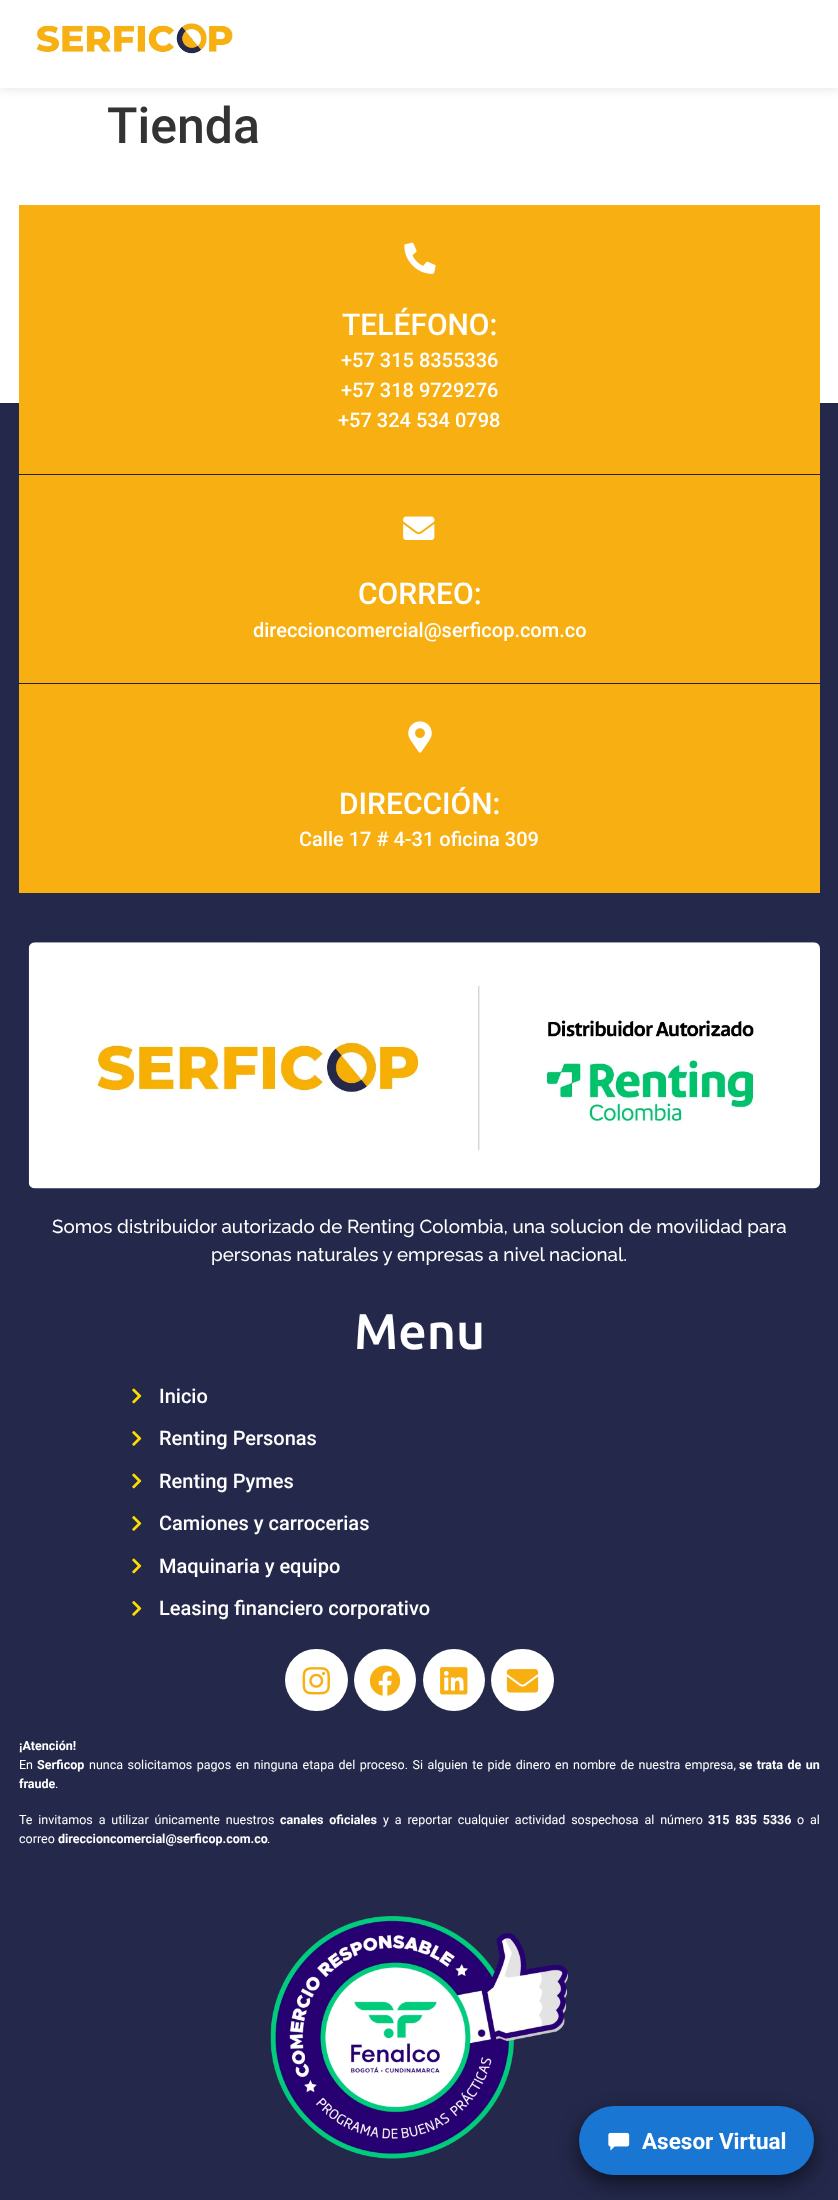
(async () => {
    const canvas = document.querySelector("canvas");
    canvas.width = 838;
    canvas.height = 2200;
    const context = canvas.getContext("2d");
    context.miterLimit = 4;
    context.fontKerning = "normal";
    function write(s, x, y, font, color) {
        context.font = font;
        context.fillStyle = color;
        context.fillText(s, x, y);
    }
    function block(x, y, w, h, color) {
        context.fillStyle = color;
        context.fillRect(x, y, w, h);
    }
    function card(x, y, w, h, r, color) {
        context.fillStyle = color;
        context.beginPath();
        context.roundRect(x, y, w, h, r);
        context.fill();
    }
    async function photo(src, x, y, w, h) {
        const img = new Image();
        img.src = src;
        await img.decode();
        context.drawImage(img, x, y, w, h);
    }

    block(0, 0, 838, 2200, "rgb(255, 255, 255)");
    context.fillStyle = "rgba(0, 0, 0, 0.12)";
    context.filter = "blur(6px)";
    context.beginPath();
    context.rect(0, -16, 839, 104);
    context.fill();
    context.filter = "none";
    block(0, 0, 838, 88, "rgb(255, 255, 255)");
    await photo("media/1.png", 35, 23, 198, 31);
    write("Tienda", 107, 143, "500 50px Roboto", "rgb(51, 51, 51)");
    block(0, 403, 838, 1797, "rgb(36, 40, 74)");
    block(19, 205, 801, 688, "rgb(247, 175, 18)");
    await photo("media/2.png", 404, 242, 32, 32);
    write("TELÉFONO:", 342, 335, "500 30px Roboto", "rgb(255, 255, 255)");
    write("+57 315 8355336", 341, 367, "500 20px Roboto", "rgb(255, 255, 255)");
    write("+57 318 9729276", 341, 397, "500 20px Roboto", "rgb(255, 255, 255)");
    write("+57 324 534 0798", 338, 427, "500 20px Roboto", "rgb(255, 255, 255)");
    block(19, 474, 801, 1, "rgb(37, 37, 37)");
    block(19, 683, 801, 1, "rgb(37, 37, 37)");
    await photo("media/3.png", 403, 516, 32, 24);
    write("CORREO:", 358, 604, "500 30px Roboto", "rgb(255, 255, 255)");
    write("direccioncomercial@serficop.com.co", 253, 637, "500 20px Roboto", "rgb(255, 255, 255)");
    await photo("media/4.png", 408, 721, 24, 32);
    write("DIRECCIÓN:", 339, 814, "500 30px Roboto", "rgb(255, 255, 255)");
    write("Calle 17 # 4-31 oficina 309", 299, 846, "500 20px Roboto", "rgb(255, 255, 255)");
    await photo("media/5.png", 28, 942, 792, 247);
    write("Somos distribuidor autorizado de Renting Colombia, una solucion de movilidad para", 52, 1233, "500 18.75px Raleway", "rgb(255, 255, 255)");
    write("personas naturales y empresas a nivel nacional.", 211, 1261, "500 18.75px Raleway", "rgb(255, 255, 255)");
    write("Menu", 354, 1349, "500 50px Ubuntu", "rgb(255, 255, 255)");
    await photo("media/6.png", 132, 1388, 10, 16);
    write("Inicio", 159, 1403, "500 20px Roboto", "rgb(255, 255, 255)");
    await photo("media/7.png", 132, 1431, 10, 15);
    write("Renting Personas", 159, 1445, "500 20px Roboto", "rgb(255, 255, 255)");
    await photo("media/6.png", 132, 1473, 10, 16);
    write("Renting Pymes", 159, 1488, "500 20px Roboto", "rgb(255, 255, 255)");
    await photo("media/7.png", 132, 1516, 10, 15);
    write("Camiones y carrocerias", 159, 1530, "500 20px Roboto", "rgb(255, 255, 255)");
    await photo("media/6.png", 132, 1558, 10, 16);
    write("Maquinaria y equipo", 159, 1573, "500 20px Roboto", "rgb(255, 255, 255)");
    await photo("media/7.png", 132, 1601, 10, 15);
    write("Leasing financiero corporativo", 159, 1615, "500 20px Roboto", "rgb(255, 255, 255)");
    card(285, 1649, 63, 62, 31, "rgb(255, 255, 255)");
    await photo("media/8.png", 302, 1667, 28, 28);
    context.beginPath();
    context.arc(385, 1680, 31, 0, Math.PI * 2);
    context.fill();
    await photo("media/9.png", 369, 1665, 32, 31);
    context.beginPath();
    context.arc(454, 1680, 31, 0, Math.PI * 2);
    context.fill();
    await photo("media/10.png", 440, 1667, 28, 28);
    card(491, 1649, 63, 62, 31, "rgb(255, 255, 255)");
    await photo("media/11.png", 506, 1669, 33, 24);
    write("¡Atención!", 19, 1750, "bold 12.5px Roboto", "rgb(255, 255, 255)");
    write("En", 19, 1769, "12.5px Roboto", "rgb(255, 255, 255)");
    write("Serficop", 37, 1769, "bold 12.5px Roboto", "rgb(255, 255, 255)");
    context.wordSpacing = "1.4px";
    write("nunca solicitamos pagos en ninguna etapa del proceso. Si alguien te pide dinero en nombre de nuestra empresa,", 89, 1769, "12.5px Roboto", "rgb(255, 255, 255)");
    write("se trata de un", 739, 1769, "bold 12.5px Roboto", "rgb(255, 255, 255)");
    context.wordSpacing = "0px";
    write("fraude", 19, 1788, "bold 12.5px Roboto", "rgb(255, 255, 255)");
    write(".", 55, 1788, "12.5px Roboto", "rgb(255, 255, 255)");
    context.wordSpacing = "2.75px";
    write("Te invitamos a utilizar únicamente nuestros", 19, 1824, "12.5px Roboto", "rgb(255, 255, 255)");
    write("canales oficiales", 280, 1824, "bold 12.5px Roboto", "rgb(255, 255, 255)");
    write("y a reportar cualquier actividad sospechosa al número", 383, 1824, "12.5px Roboto", "rgb(255, 255, 255)");
    write("315 835 5336", 708, 1824, "bold 12.5px Roboto", "rgb(255, 255, 255)");
    write("o al", 797, 1824, "12.5px Roboto", "rgb(255, 255, 255)");
    context.wordSpacing = "0px";
    write("correo", 19, 1843, "12.5px Roboto", "rgb(255, 255, 255)");
    write("direccioncomercial@serficop.com.co", 58, 1843, "bold 12.5px Roboto", "rgb(255, 255, 255)");
    write(".", 267, 1843, "12.5px Roboto", "rgb(255, 255, 255)");
    await photo("media/12.png", 270, 1916, 298, 243);
    context.fillStyle = "rgba(0, 0, 0, 0.55)";
    context.filter = "blur(10px)";
    context.beginPath();
    context.roundRect(579, 2114, 235, 69, 34.5);
    context.fill();
    context.filter = "none";
    card(579, 2106, 235, 69, 34.5, "rgb(25, 118, 210)");
    await photo("media/13.png", 608, 2132, 22, 19);
    write("Asesor Virtual", 642, 2149, "bold 22.5px Roboto", "rgb(255, 255, 255)");
})();
